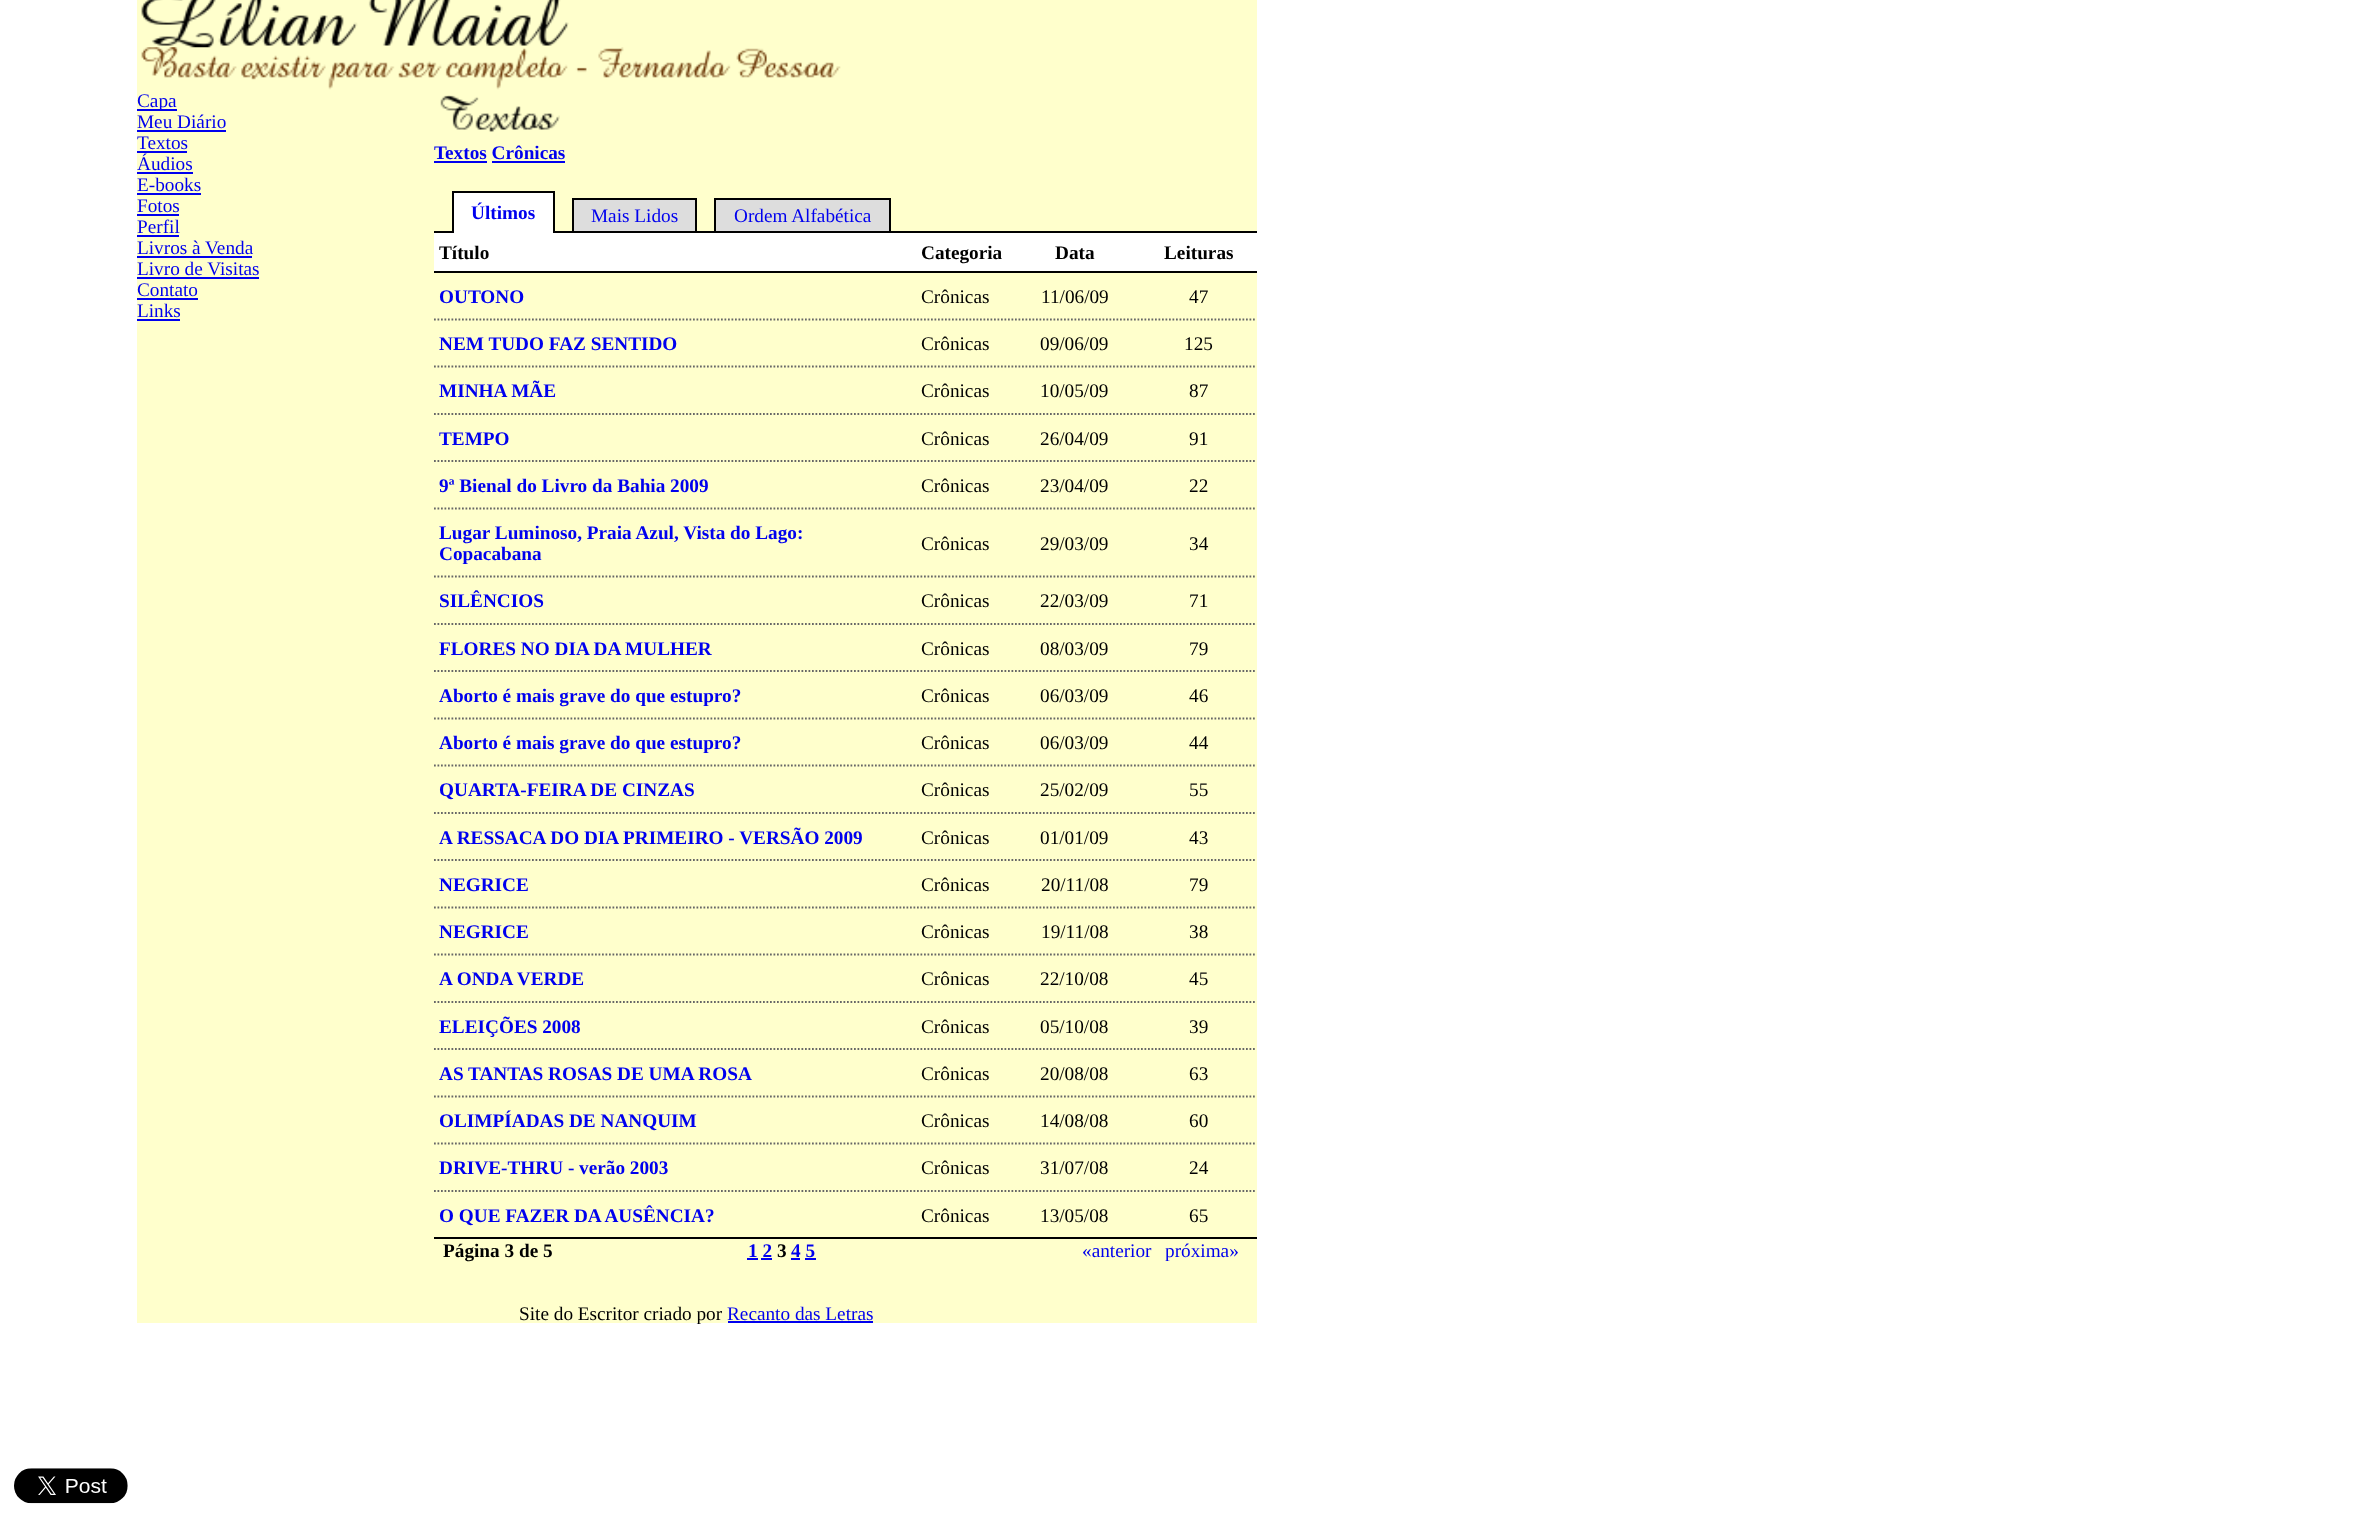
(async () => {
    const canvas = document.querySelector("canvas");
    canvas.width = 2370;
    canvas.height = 1528;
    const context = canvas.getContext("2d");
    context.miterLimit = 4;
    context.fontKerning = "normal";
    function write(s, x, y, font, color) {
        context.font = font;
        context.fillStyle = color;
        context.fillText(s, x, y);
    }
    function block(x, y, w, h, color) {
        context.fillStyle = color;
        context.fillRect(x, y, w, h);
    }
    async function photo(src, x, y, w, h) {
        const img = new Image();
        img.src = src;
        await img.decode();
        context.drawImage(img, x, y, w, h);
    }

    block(0, 0, 2370, 1528, "rgb(255, 255, 255)");
    block(137, 0, 1120, 1323, "rgb(255, 255, 204)");
    await photo("media/1.png", 141, 0, 428, 48);
    await photo("media/2.png", 141, 47, 700, 43);
    block(137, 109, 40, 2, "rgb(0, 0, 238)");
    write("Capa", 137, 107, "19.25px Liberation Serif", "rgb(0, 0, 238)");
    write("Meu Diário", 137, 128, "19.25px Liberation Serif", "rgb(0, 0, 238)");
    block(137, 130, 89, 2, "rgb(0, 0, 238)");
    write("Textos", 137, 149, "19.25px Liberation Serif", "rgb(0, 0, 238)");
    block(137, 151, 50, 2, "rgb(0, 0, 238)");
    write("Áudios", 137, 170, "19.25px Liberation Serif", "rgb(0, 0, 238)");
    block(137, 172, 56, 2, "rgb(0, 0, 238)");
    write("E-books", 137, 191, "19.25px Liberation Serif", "rgb(0, 0, 238)");
    block(137, 193, 64, 2, "rgb(0, 0, 238)");
    write("Fotos", 137, 212, "19.25px Liberation Serif", "rgb(0, 0, 238)");
    block(137, 214, 42, 2, "rgb(0, 0, 238)");
    write("Perfil", 137, 233, "19.25px Liberation Serif", "rgb(0, 0, 238)");
    block(137, 235, 42, 2, "rgb(0, 0, 238)");
    write("Livros à Venda", 137, 254, "19.25px Liberation Serif", "rgb(0, 0, 238)");
    block(137, 256, 115, 2, "rgb(0, 0, 238)");
    write("Livro de Visitas", 137, 275, "19.25px Liberation Serif", "rgb(0, 0, 238)");
    block(137, 277, 122, 2, "rgb(0, 0, 238)");
    write("Contato", 137, 296, "19.25px Liberation Serif", "rgb(0, 0, 238)");
    block(137, 298, 61, 2, "rgb(0, 0, 238)");
    write("Links", 137, 317, "19.25px Liberation Serif", "rgb(0, 0, 238)");
    block(137, 319, 43, 2, "rgb(0, 0, 238)");
    await photo("media/3.png", 440, 95, 120, 37);
    write("Textos Crônicas", 434, 159, "bold 19.25px Liberation Serif", "rgb(0, 0, 238)");
    block(434, 161, 53, 2, "rgb(0, 0, 238)");
    block(492, 161, 73, 2, "rgb(0, 0, 238)");
    block(434, 231, 823, 2, "rgb(0, 0, 0)");
    block(454, 193, 99, 40, "rgb(255, 255, 255)");
    block(452, 191, 103, 2, "rgb(0, 0, 0)");
    block(553, 191, 2, 42, "rgb(0, 0, 0)");
    block(452, 191, 2, 42, "rgb(0, 0, 0)");
    write("Últimos", 471, 219, "bold 19.25px Liberation Serif", "rgb(0, 0, 238)");
    context.fillStyle = "rgb(221, 221, 221)";
    context.beginPath();
    context.rect(573, 199, 123, 33);
    context.fill();
    context.strokeStyle = "rgb(0, 0, 0)";
    context.lineWidth = 2;
    context.stroke();
    write("Mais Lidos", 591, 222, "19.25px Liberation Serif", "rgb(0, 0, 238)");
    context.fillStyle = "rgb(221, 221, 221)";
    context.beginPath();
    context.rect(715, 199, 175, 33);
    context.fill();
    context.stroke();
    write("Ordem Alfabética", 734, 222, "19.25px Liberation Serif", "rgb(0, 0, 238)");
    block(434, 233, 823, 38, "rgb(255, 255, 255)");
    block(434, 271, 823, 2, "rgb(0, 0, 0)");
    write("Título", 439, 259, "bold 19.25px Liberation Serif", "rgb(0, 0, 0)");
    write("Categoria", 921, 259, "bold 19.25px Liberation Serif", "rgb(0, 0, 0)");
    write("Data", 1055, 259, "bold 19.25px Liberation Serif", "rgb(0, 0, 0)");
    write("Leituras", 1164, 259, "bold 19.25px Liberation Serif", "rgb(0, 0, 0)");
    context.beginPath();
    context.moveTo(434, 319.5);
    context.lineTo(917, 319.5);
    context.strokeStyle = "rgb(102, 102, 102)";
    context.lineWidth = 1.8;
    context.setLineDash([1.75, 1.75]);
    context.stroke();
    write("OUTONO", 439, 303, "bold 19.25px Liberation Serif", "rgb(0, 0, 238)");
    context.beginPath();
    context.moveTo(917, 319.5);
    context.lineTo(1008, 319.5);
    context.stroke();
    write("Crônicas", 921, 303, "19.25px Liberation Serif", "rgb(0, 0, 0)");
    context.beginPath();
    context.moveTo(1008, 319.5);
    context.lineTo(1141, 319.5);
    context.stroke();
    write("11/06/09", 1041, 303, "19.25px Liberation Serif", "rgb(0, 0, 0)");
    context.beginPath();
    context.moveTo(1141, 319.5);
    context.lineTo(1256.5, 319.5);
    context.stroke();
    write("47", 1189, 303, "19.25px Liberation Serif", "rgb(0, 0, 0)");
    context.beginPath();
    context.moveTo(434, 366.5);
    context.lineTo(917, 366.5);
    context.stroke();
    write("NEM TUDO FAZ SENTIDO", 439, 350, "bold 19.25px Liberation Serif", "rgb(0, 0, 238)");
    context.beginPath();
    context.moveTo(917, 366.5);
    context.lineTo(1008, 366.5);
    context.stroke();
    write("Crônicas", 921, 350, "19.25px Liberation Serif", "rgb(0, 0, 0)");
    context.beginPath();
    context.moveTo(1008, 366.5);
    context.lineTo(1141, 366.5);
    context.stroke();
    write("09/06/09", 1040, 350, "19.25px Liberation Serif", "rgb(0, 0, 0)");
    context.beginPath();
    context.moveTo(1141, 366.5);
    context.lineTo(1256.5, 366.5);
    context.stroke();
    write("125", 1184, 350, "19.25px Liberation Serif", "rgb(0, 0, 0)");
    context.beginPath();
    context.moveTo(434, 414);
    context.lineTo(917, 414);
    context.stroke();
    write("MINHA MÃE", 439, 397, "bold 19.25px Liberation Serif", "rgb(0, 0, 238)");
    context.beginPath();
    context.moveTo(917, 414);
    context.lineTo(1008, 414);
    context.stroke();
    write("Crônicas", 921, 397, "19.25px Liberation Serif", "rgb(0, 0, 0)");
    context.beginPath();
    context.moveTo(1008, 414);
    context.lineTo(1141, 414);
    context.stroke();
    write("10/05/09", 1040, 397, "19.25px Liberation Serif", "rgb(0, 0, 0)");
    context.beginPath();
    context.moveTo(1141, 414);
    context.lineTo(1256.5, 414);
    context.stroke();
    write("87", 1189, 397, "19.25px Liberation Serif", "rgb(0, 0, 0)");
    context.beginPath();
    context.moveTo(434, 461);
    context.lineTo(917, 461);
    context.stroke();
    write("TEMPO", 439, 445, "bold 19.25px Liberation Serif", "rgb(0, 0, 238)");
    context.beginPath();
    context.moveTo(917, 461);
    context.lineTo(1008, 461);
    context.stroke();
    write("Crônicas", 921, 445, "19.25px Liberation Serif", "rgb(0, 0, 0)");
    context.beginPath();
    context.moveTo(1008, 461);
    context.lineTo(1141, 461);
    context.stroke();
    write("26/04/09", 1040, 445, "19.25px Liberation Serif", "rgb(0, 0, 0)");
    context.beginPath();
    context.moveTo(1141, 461);
    context.lineTo(1256.5, 461);
    context.stroke();
    write("91", 1189, 445, "19.25px Liberation Serif", "rgb(0, 0, 0)");
    context.beginPath();
    context.moveTo(434, 508.5);
    context.lineTo(917, 508.5);
    context.stroke();
    write("9ª Bienal do Livro da Bahia 2009", 439, 492, "bold 19.25px Liberation Serif", "rgb(0, 0, 238)");
    context.beginPath();
    context.moveTo(917, 508.5);
    context.lineTo(1008, 508.5);
    context.stroke();
    write("Crônicas", 921, 492, "19.25px Liberation Serif", "rgb(0, 0, 0)");
    context.beginPath();
    context.moveTo(1008, 508.5);
    context.lineTo(1141, 508.5);
    context.stroke();
    write("23/04/09", 1040, 492, "19.25px Liberation Serif", "rgb(0, 0, 0)");
    context.beginPath();
    context.moveTo(1141, 508.5);
    context.lineTo(1256.5, 508.5);
    context.stroke();
    write("22", 1189, 492, "19.25px Liberation Serif", "rgb(0, 0, 0)");
    context.beginPath();
    context.moveTo(434, 576.5);
    context.lineTo(917, 576.5);
    context.stroke();
    write("Lugar Luminoso, Praia Azul, Vista do Lago:", 439, 539, "bold 19.25px Liberation Serif", "rgb(0, 0, 238)");
    write("Copacabana", 439, 560, "bold 19.25px Liberation Serif", "rgb(0, 0, 238)");
    context.beginPath();
    context.moveTo(917, 576.5);
    context.lineTo(1008, 576.5);
    context.stroke();
    write("Crônicas", 921, 550, "19.25px Liberation Serif", "rgb(0, 0, 0)");
    context.beginPath();
    context.moveTo(1008, 576.5);
    context.lineTo(1141, 576.5);
    context.stroke();
    write("29/03/09", 1040, 550, "19.25px Liberation Serif", "rgb(0, 0, 0)");
    context.beginPath();
    context.moveTo(1141, 576.5);
    context.lineTo(1256.5, 576.5);
    context.stroke();
    write("34", 1189, 550, "19.25px Liberation Serif", "rgb(0, 0, 0)");
    context.beginPath();
    context.moveTo(434, 624);
    context.lineTo(917, 624);
    context.stroke();
    write("SILÊNCIOS", 439, 607, "bold 19.25px Liberation Serif", "rgb(0, 0, 238)");
    context.beginPath();
    context.moveTo(917, 624);
    context.lineTo(1008, 624);
    context.stroke();
    write("Crônicas", 921, 607, "19.25px Liberation Serif", "rgb(0, 0, 0)");
    context.beginPath();
    context.moveTo(1008, 624);
    context.lineTo(1141, 624);
    context.stroke();
    write("22/03/09", 1040, 607, "19.25px Liberation Serif", "rgb(0, 0, 0)");
    context.beginPath();
    context.moveTo(1141, 624);
    context.lineTo(1256.5, 624);
    context.stroke();
    write("71", 1189, 607, "19.25px Liberation Serif", "rgb(0, 0, 0)");
    context.beginPath();
    context.moveTo(434, 671);
    context.lineTo(917, 671);
    context.stroke();
    write("FLORES NO DIA DA MULHER", 439, 655, "bold 19.25px Liberation Serif", "rgb(0, 0, 238)");
    context.beginPath();
    context.moveTo(917, 671);
    context.lineTo(1008, 671);
    context.stroke();
    write("Crônicas", 921, 655, "19.25px Liberation Serif", "rgb(0, 0, 0)");
    context.beginPath();
    context.moveTo(1008, 671);
    context.lineTo(1141, 671);
    context.stroke();
    write("08/03/09", 1040, 655, "19.25px Liberation Serif", "rgb(0, 0, 0)");
    context.beginPath();
    context.moveTo(1141, 671);
    context.lineTo(1256.5, 671);
    context.stroke();
    write("79", 1189, 655, "19.25px Liberation Serif", "rgb(0, 0, 0)");
    context.beginPath();
    context.moveTo(434, 718.5);
    context.lineTo(917, 718.5);
    context.stroke();
    write("Aborto é mais grave do que estupro?", 439, 702, "bold 19.25px Liberation Serif", "rgb(0, 0, 238)");
    context.beginPath();
    context.moveTo(917, 718.5);
    context.lineTo(1008, 718.5);
    context.stroke();
    write("Crônicas", 921, 702, "19.25px Liberation Serif", "rgb(0, 0, 0)");
    context.beginPath();
    context.moveTo(1008, 718.5);
    context.lineTo(1141, 718.5);
    context.stroke();
    write("06/03/09", 1040, 702, "19.25px Liberation Serif", "rgb(0, 0, 0)");
    context.beginPath();
    context.moveTo(1141, 718.5);
    context.lineTo(1256.5, 718.5);
    context.stroke();
    write("46", 1189, 702, "19.25px Liberation Serif", "rgb(0, 0, 0)");
    context.beginPath();
    context.moveTo(434, 765.5);
    context.lineTo(917, 765.5);
    context.stroke();
    write("Aborto é mais grave do que estupro?", 439, 749, "bold 19.25px Liberation Serif", "rgb(0, 0, 238)");
    context.beginPath();
    context.moveTo(917, 765.5);
    context.lineTo(1008, 765.5);
    context.stroke();
    write("Crônicas", 921, 749, "19.25px Liberation Serif", "rgb(0, 0, 0)");
    context.beginPath();
    context.moveTo(1008, 765.5);
    context.lineTo(1141, 765.5);
    context.stroke();
    write("06/03/09", 1040, 749, "19.25px Liberation Serif", "rgb(0, 0, 0)");
    context.beginPath();
    context.moveTo(1141, 765.5);
    context.lineTo(1256.5, 765.5);
    context.stroke();
    write("44", 1189, 749, "19.25px Liberation Serif", "rgb(0, 0, 0)");
    context.beginPath();
    context.moveTo(434, 813);
    context.lineTo(917, 813);
    context.stroke();
    write("QUARTA-FEIRA DE CINZAS", 439, 796, "bold 19.25px Liberation Serif", "rgb(0, 0, 238)");
    context.beginPath();
    context.moveTo(917, 813);
    context.lineTo(1008, 813);
    context.stroke();
    write("Crônicas", 921, 796, "19.25px Liberation Serif", "rgb(0, 0, 0)");
    context.beginPath();
    context.moveTo(1008, 813);
    context.lineTo(1141, 813);
    context.stroke();
    write("25/02/09", 1040, 796, "19.25px Liberation Serif", "rgb(0, 0, 0)");
    context.beginPath();
    context.moveTo(1141, 813);
    context.lineTo(1256.5, 813);
    context.stroke();
    write("55", 1189, 796, "19.25px Liberation Serif", "rgb(0, 0, 0)");
    context.beginPath();
    context.moveTo(434, 860);
    context.lineTo(917, 860);
    context.stroke();
    write("A RESSACA DO DIA PRIMEIRO - VERSÃO 2009", 439, 844, "bold 19.25px Liberation Serif", "rgb(0, 0, 238)");
    context.beginPath();
    context.moveTo(917, 860);
    context.lineTo(1008, 860);
    context.stroke();
    write("Crônicas", 921, 844, "19.25px Liberation Serif", "rgb(0, 0, 0)");
    context.beginPath();
    context.moveTo(1008, 860);
    context.lineTo(1141, 860);
    context.stroke();
    write("01/01/09", 1040, 844, "19.25px Liberation Serif", "rgb(0, 0, 0)");
    context.beginPath();
    context.moveTo(1141, 860);
    context.lineTo(1256.5, 860);
    context.stroke();
    write("43", 1189, 844, "19.25px Liberation Serif", "rgb(0, 0, 0)");
    context.beginPath();
    context.moveTo(434, 907.5);
    context.lineTo(917, 907.5);
    context.stroke();
    write("NEGRICE", 439, 891, "bold 19.25px Liberation Serif", "rgb(0, 0, 238)");
    context.beginPath();
    context.moveTo(917, 907.5);
    context.lineTo(1008, 907.5);
    context.stroke();
    write("Crônicas", 921, 891, "19.25px Liberation Serif", "rgb(0, 0, 0)");
    context.beginPath();
    context.moveTo(1008, 907.5);
    context.lineTo(1141, 907.5);
    context.stroke();
    write("20/11/08", 1041, 891, "19.25px Liberation Serif", "rgb(0, 0, 0)");
    context.beginPath();
    context.moveTo(1141, 907.5);
    context.lineTo(1256.5, 907.5);
    context.stroke();
    write("79", 1189, 891, "19.25px Liberation Serif", "rgb(0, 0, 0)");
    context.beginPath();
    context.moveTo(434, 954.5);
    context.lineTo(917, 954.5);
    context.stroke();
    write("NEGRICE", 439, 938, "bold 19.25px Liberation Serif", "rgb(0, 0, 238)");
    context.beginPath();
    context.moveTo(917, 954.5);
    context.lineTo(1008, 954.5);
    context.stroke();
    write("Crônicas", 921, 938, "19.25px Liberation Serif", "rgb(0, 0, 0)");
    context.beginPath();
    context.moveTo(1008, 954.5);
    context.lineTo(1141, 954.5);
    context.stroke();
    write("19/11/08", 1041, 938, "19.25px Liberation Serif", "rgb(0, 0, 0)");
    context.beginPath();
    context.moveTo(1141, 954.5);
    context.lineTo(1256.5, 954.5);
    context.stroke();
    write("38", 1189, 938, "19.25px Liberation Serif", "rgb(0, 0, 0)");
    context.beginPath();
    context.moveTo(434, 1002);
    context.lineTo(917, 1002);
    context.stroke();
    write("A ONDA VERDE", 439, 985, "bold 19.25px Liberation Serif", "rgb(0, 0, 238)");
    context.beginPath();
    context.moveTo(917, 1002);
    context.lineTo(1008, 1002);
    context.stroke();
    write("Crônicas", 921, 985, "19.25px Liberation Serif", "rgb(0, 0, 0)");
    context.beginPath();
    context.moveTo(1008, 1002);
    context.lineTo(1141, 1002);
    context.stroke();
    write("22/10/08", 1040, 985, "19.25px Liberation Serif", "rgb(0, 0, 0)");
    context.beginPath();
    context.moveTo(1141, 1002);
    context.lineTo(1256.5, 1002);
    context.stroke();
    write("45", 1189, 985, "19.25px Liberation Serif", "rgb(0, 0, 0)");
    context.beginPath();
    context.moveTo(434, 1049);
    context.lineTo(917, 1049);
    context.stroke();
    write("ELEIÇÕES 2008", 439, 1033, "bold 19.25px Liberation Serif", "rgb(0, 0, 238)");
    context.beginPath();
    context.moveTo(917, 1049);
    context.lineTo(1008, 1049);
    context.stroke();
    write("Crônicas", 921, 1033, "19.25px Liberation Serif", "rgb(0, 0, 0)");
    context.beginPath();
    context.moveTo(1008, 1049);
    context.lineTo(1141, 1049);
    context.stroke();
    write("05/10/08", 1040, 1033, "19.25px Liberation Serif", "rgb(0, 0, 0)");
    context.beginPath();
    context.moveTo(1141, 1049);
    context.lineTo(1256.5, 1049);
    context.stroke();
    write("39", 1189, 1033, "19.25px Liberation Serif", "rgb(0, 0, 0)");
    context.beginPath();
    context.moveTo(434, 1096.5);
    context.lineTo(917, 1096.5);
    context.stroke();
    write("AS", 439, 1080, "bold 19.25px Liberation Serif", "rgb(0, 0, 238)");
    write("TANTAS ROSAS DE UMA ROSA", 468, 1080, "bold 19.25px Liberation Serif", "rgb(0, 0, 238)");
    context.beginPath();
    context.moveTo(917, 1096.5);
    context.lineTo(1008, 1096.5);
    context.stroke();
    write("Crônicas", 921, 1080, "19.25px Liberation Serif", "rgb(0, 0, 0)");
    context.beginPath();
    context.moveTo(1008, 1096.5);
    context.lineTo(1141, 1096.5);
    context.stroke();
    write("20/08/08", 1040, 1080, "19.25px Liberation Serif", "rgb(0, 0, 0)");
    context.beginPath();
    context.moveTo(1141, 1096.5);
    context.lineTo(1256.5, 1096.5);
    context.stroke();
    write("63", 1189, 1080, "19.25px Liberation Serif", "rgb(0, 0, 0)");
    context.beginPath();
    context.moveTo(434, 1143.5);
    context.lineTo(917, 1143.5);
    context.stroke();
    write("OLIMPÍADAS DE NANQUIM", 439, 1127, "bold 19.25px Liberation Serif", "rgb(0, 0, 238)");
    context.beginPath();
    context.moveTo(917, 1143.5);
    context.lineTo(1008, 1143.5);
    context.stroke();
    write("Crônicas", 921, 1127, "19.25px Liberation Serif", "rgb(0, 0, 0)");
    context.beginPath();
    context.moveTo(1008, 1143.5);
    context.lineTo(1141, 1143.5);
    context.stroke();
    write("14/08/08", 1040, 1127, "19.25px Liberation Serif", "rgb(0, 0, 0)");
    context.beginPath();
    context.moveTo(1141, 1143.5);
    context.lineTo(1256.5, 1143.5);
    context.stroke();
    write("60", 1189, 1127, "19.25px Liberation Serif", "rgb(0, 0, 0)");
    context.beginPath();
    context.moveTo(434, 1191);
    context.lineTo(917, 1191);
    context.stroke();
    write("DRIVE-THRU - verão 2003", 439, 1174, "bold 19.25px Liberation Serif", "rgb(0, 0, 238)");
    context.beginPath();
    context.moveTo(917, 1191);
    context.lineTo(1008, 1191);
    context.stroke();
    write("Crônicas", 921, 1174, "19.25px Liberation Serif", "rgb(0, 0, 0)");
    context.beginPath();
    context.moveTo(1008, 1191);
    context.lineTo(1141, 1191);
    context.stroke();
    write("31/07/08", 1040, 1174, "19.25px Liberation Serif", "rgb(0, 0, 0)");
    context.beginPath();
    context.moveTo(1141, 1191);
    context.lineTo(1256.5, 1191);
    context.stroke();
    write("24", 1189, 1174, "19.25px Liberation Serif", "rgb(0, 0, 0)");
    write("O QUE FAZER DA AUSÊNCIA?", 439, 1222, "bold 19.25px Liberation Serif", "rgb(0, 0, 238)");
    write("Crônicas", 921, 1222, "19.25px Liberation Serif", "rgb(0, 0, 0)");
    write("13/05/08", 1040, 1222, "19.25px Liberation Serif", "rgb(0, 0, 0)");
    write("65", 1189, 1222, "19.25px Liberation Serif", "rgb(0, 0, 0)");
    block(434, 1237, 823, 2, "rgb(0, 0, 0)");
    write("Página 3 de 5", 443, 1257, "bold 19.25px Liberation Serif", "rgb(0, 0, 0)");
    write("1 2", 748, 1257, "bold 19.25px Liberation Serif", "rgb(0, 0, 238)");
    block(747, 1258, 11, 2, "rgb(0, 0, 238)");
    write("3", 777, 1257, "bold 19.25px Liberation Serif", "rgb(0, 0, 0)");
    write("4 5", 791, 1257, "bold 19.25px Liberation Serif", "rgb(0, 0, 238)");
    block(791, 1258, 9, 2, "rgb(0, 0, 238)");
    block(761, 1258, 11, 2, "rgb(0, 0, 238)");
    block(805, 1258, 11, 2, "rgb(0, 0, 238)");
    write("«anterior", 1082, 1257, "19.25px Liberation Serif", "rgb(0, 0, 238)");
    write("próxima»", 1165, 1257, "19.25px Liberation Serif", "rgb(0, 0, 238)");
    write("Site do Escritor criado por", 519, 1320, "19.25px Liberation Serif", "rgb(0, 0, 0)");
    write("Recanto das Letras", 727, 1320, "19.25px Liberation Serif", "rgb(0, 0, 238)");
    block(728, 1321, 145, 2, "rgb(0, 0, 238)");
    await photo("media/4.png", 14, 1468, 114, 36);
})();
